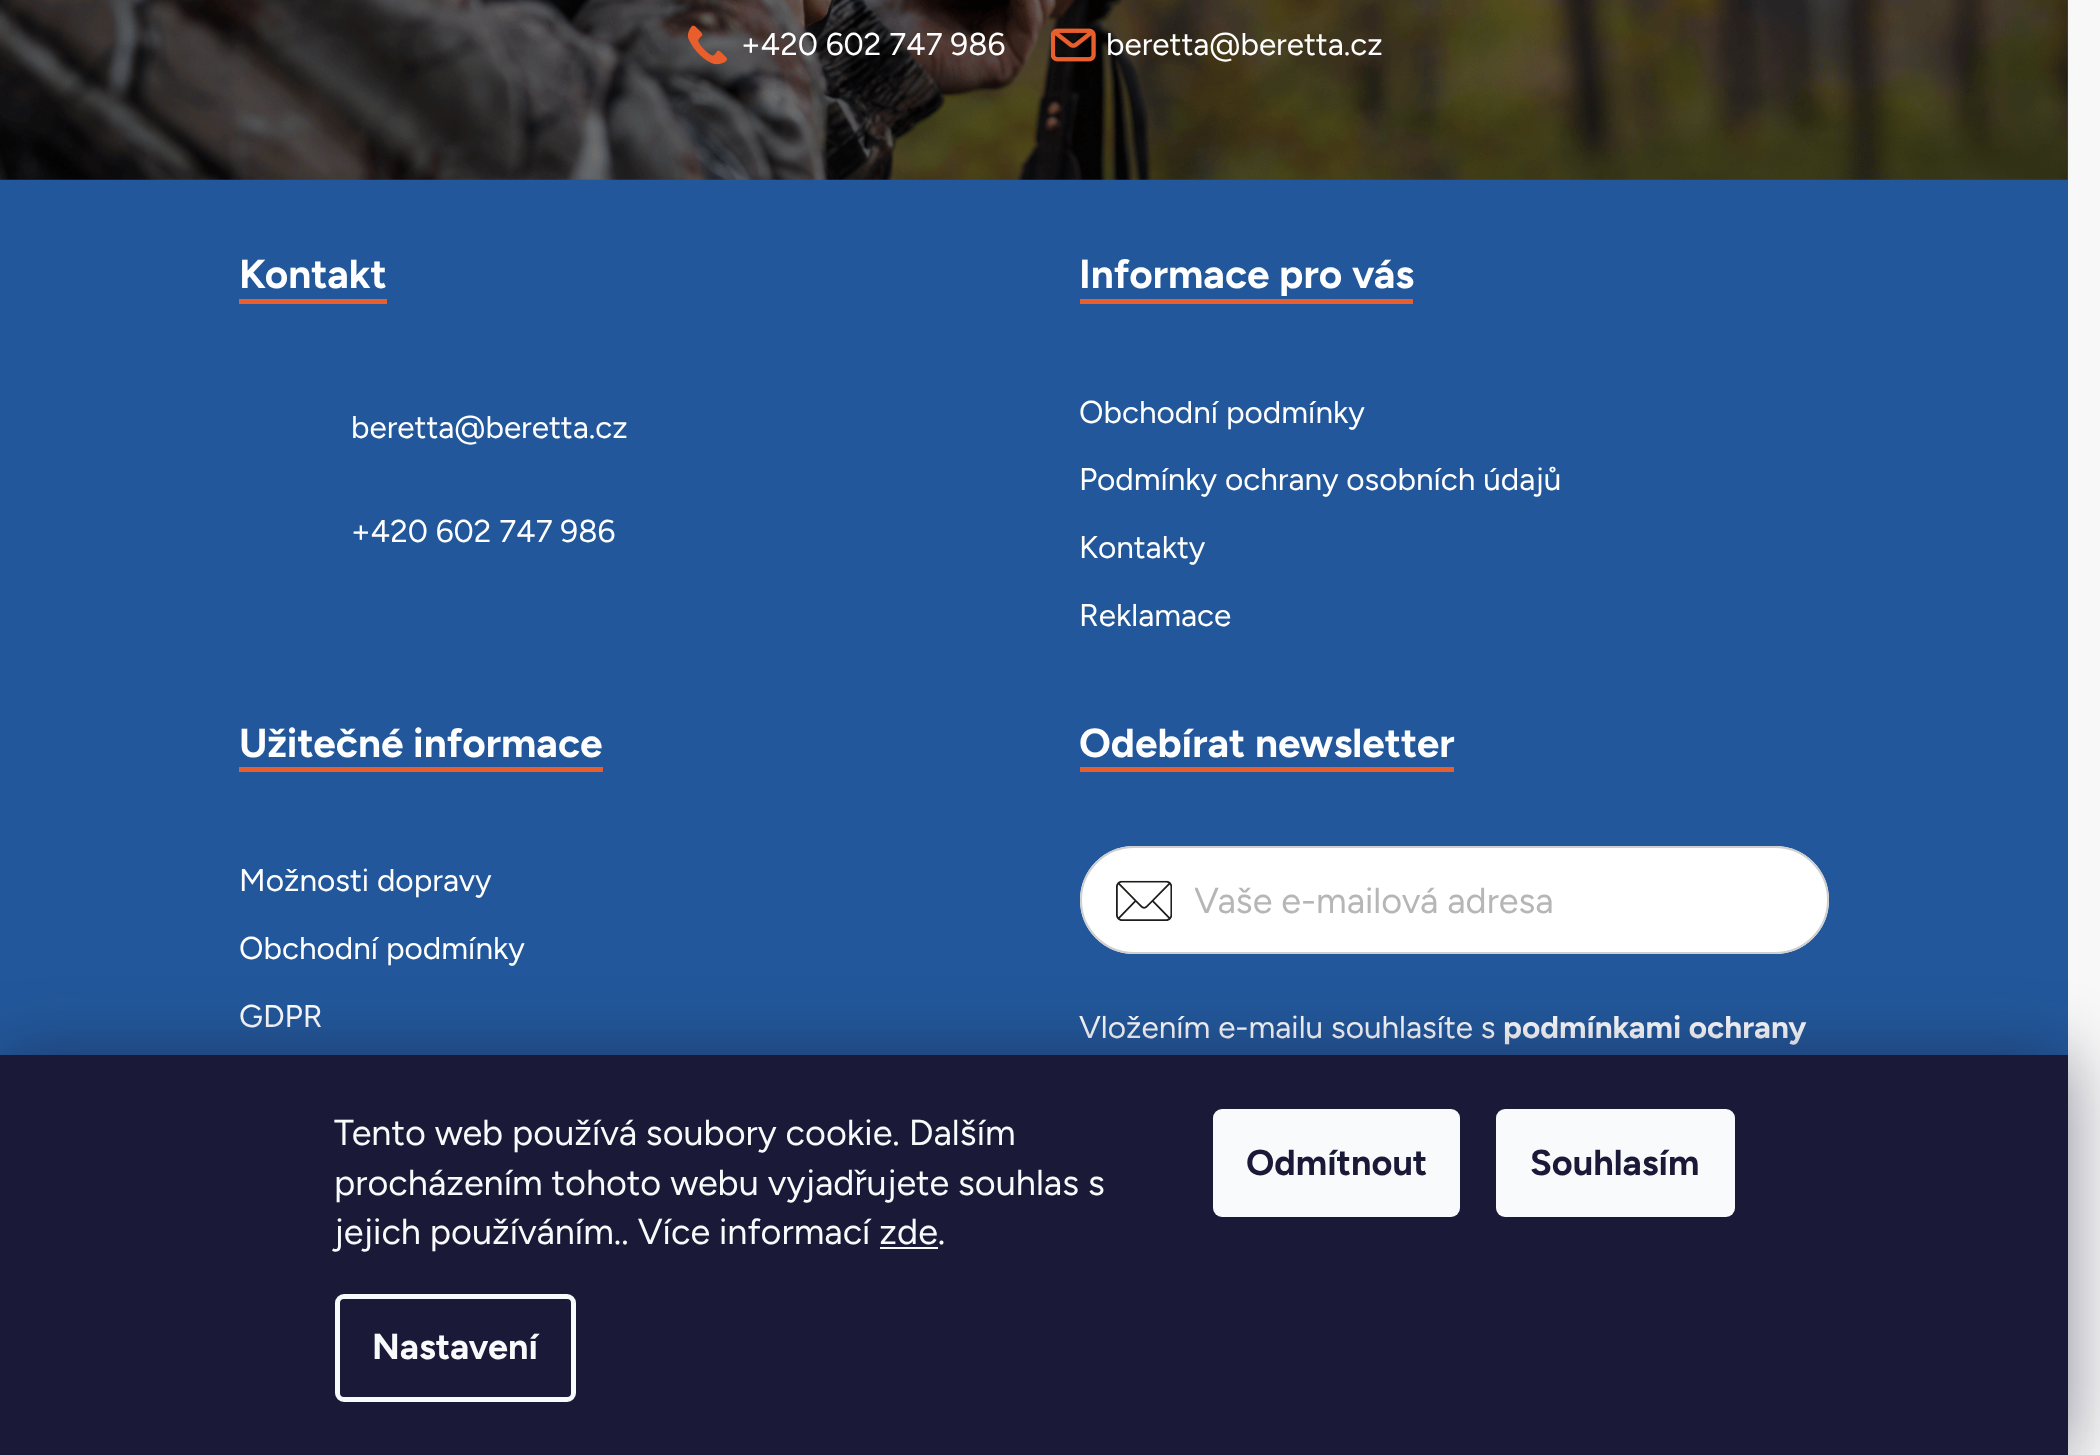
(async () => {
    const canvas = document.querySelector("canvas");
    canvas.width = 2100;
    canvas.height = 1455;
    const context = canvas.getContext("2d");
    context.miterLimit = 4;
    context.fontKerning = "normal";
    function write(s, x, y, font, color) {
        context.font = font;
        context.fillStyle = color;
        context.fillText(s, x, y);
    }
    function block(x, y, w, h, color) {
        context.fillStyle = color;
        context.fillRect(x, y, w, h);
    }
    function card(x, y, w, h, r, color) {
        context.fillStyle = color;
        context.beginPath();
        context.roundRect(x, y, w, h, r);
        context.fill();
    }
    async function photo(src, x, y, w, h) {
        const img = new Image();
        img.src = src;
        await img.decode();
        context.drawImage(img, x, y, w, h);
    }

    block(0, 0, 2100, 1455, "rgb(248, 248, 248)");
    block(0, 0, 2068, 1055, "rgb(34, 88, 155)");
    await photo("media/1.png", 0, 0, 2068, 180);
    await photo("media/2.png", 687, 25, 40, 40);
    write("+420 602 747 986", 741, 55, "31.5px Figtree", "rgb(255, 255, 255)");
    await photo("media/3.png", 1051, 28, 45, 34);
    write("beretta@beretta.cz", 1106, 55, "31.5px Figtree", "rgb(255, 255, 255)");
    block(239, 299, 148, 5, "rgb(232, 94, 44)");
    write("Kontakt", 239, 288, "bold 40.5px Figtree", "rgb(255, 255, 255)");
    write("beretta@beretta.cz", 351, 438, "31.5px Figtree", "rgb(255, 255, 255)");
    write("+420 602 747 986", 351, 542, "31.5px Figtree", "rgb(255, 255, 255)");
    block(1080, 299, 333, 5, "rgb(232, 94, 44)");
    write("Informace pro vás", 1079, 288, "bold 40.5px Figtree", "rgb(255, 255, 255)");
    write("Obchodní podmínky", 1079, 423, "31.5px Figtree", "rgb(255, 255, 255)");
    write("Podmínky ochrany osobních údajů", 1079, 490, "31.5px Figtree", "rgb(255, 255, 255)");
    write("Kontakty", 1079, 558, "31.5px Figtree", "rgb(255, 255, 255)");
    write("Reklamace", 1079, 626, "31.5px Figtree", "rgb(255, 255, 255)");
    block(239, 767, 364, 5, "rgb(232, 94, 44)");
    write("Užitečné informace", 239, 757, "bold 40.5px Figtree", "rgb(255, 255, 255)");
    write("Možnosti dopravy", 239, 891, "31.5px Figtree", "rgb(255, 255, 255)");
    write("Obchodní podmínky", 239, 959, "31.5px Figtree", "rgb(255, 255, 255)");
    write("GDPR", 239, 1027, "31.5px Figtree", "rgb(255, 255, 255)");
    block(1080, 767, 374, 5, "rgb(232, 94, 44)");
    write("Odebírat newsletter", 1079, 757, "bold 40.5px Figtree", "rgb(255, 255, 255)");
    card(1080, 846, 749, 108, 54, "rgb(255, 255, 255)");
    await photo("media/4.png", 1116, 880, 56, 41);
    context.beginPath();
    context.roundRect(1081, 847, 747, 106, 53);
    context.strokeStyle = "rgb(207, 207, 207)";
    context.lineWidth = 2;
    context.stroke();
    context.save();
    context.beginPath();
    context.rect(1195, 880, 632, 43);
    context.clip();
    write("Vaše e-mailová adresa", 1194, 913, "36px Figtree", "rgb(182, 182, 182)");
    context.restore();
    write("Vložením e-mailu souhlasíte s", 1079, 1038, "31.5px Figtree", "rgb(255, 255, 255)");
    write("podmínkami ochrany", 1503, 1038, "bold 31.5px Figtree", "rgb(255, 255, 255)");
    context.fillStyle = "rgba(27, 25, 57, 0.5)";
    context.filter = "blur(34px)";
    context.beginPath();
    context.rect(0, 1055, 2068, 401);
    context.fill();
    context.filter = "none";
    block(0, 1055, 2068, 400, "rgb(26, 25, 55)");
    write("Tento web používá soubory cookie. Dalším", 334, 1145, "36px Figtree", "rgb(248, 250, 251)");
    write("procházením tohoto webu vyjadřujete souhlas s", 334, 1195, "36px Figtree", "rgb(248, 250, 251)");
    write("jejich používáním.. Více informací zde.", 334, 1244, "36px Figtree", "rgb(248, 250, 251)");
    block(880, 1247, 58, 2, "rgb(248, 250, 251)");
    context.beginPath();
    context.roundRect(337.5, 1296.5, 236, 103, 6.5);
    context.strokeStyle = "rgb(248, 250, 251)";
    context.lineWidth = 5;
    context.stroke();
    write("Nastavení", 372, 1359, "bold 36px Figtree", "rgb(248, 250, 251)");
    card(1213, 1109, 247, 108, 9, "rgb(248, 250, 251)");
    write("Odmítnout", 1246, 1175, "bold 36px Figtree", "rgb(26, 25, 55)");
    card(1496, 1109, 239, 108, 9, "rgb(248, 250, 251)");
    write("Souhlasím", 1530, 1175, "bold 36px Figtree", "rgb(26, 25, 55)");
})();
